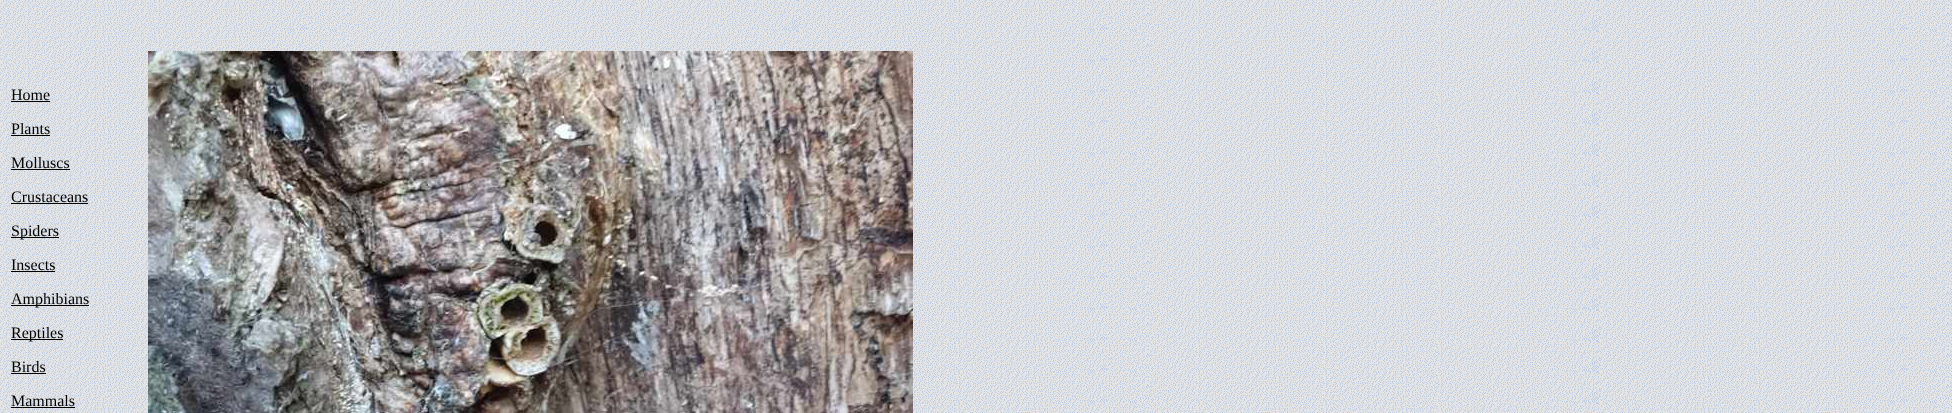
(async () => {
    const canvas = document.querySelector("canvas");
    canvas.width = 1952;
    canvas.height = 413;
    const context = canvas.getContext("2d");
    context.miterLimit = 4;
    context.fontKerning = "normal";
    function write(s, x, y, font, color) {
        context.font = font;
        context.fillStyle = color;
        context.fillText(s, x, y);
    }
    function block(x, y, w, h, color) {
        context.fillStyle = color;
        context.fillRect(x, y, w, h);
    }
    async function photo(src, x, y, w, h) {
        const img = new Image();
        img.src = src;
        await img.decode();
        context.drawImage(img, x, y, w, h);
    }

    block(0, 0, 1952, 413, "rgb(255, 255, 255)");
    await photo("media/1.png", 0, 0, 1952, 413);
    write("Home", 11, 100, "16px Liberation Serif", "rgb(0, 0, 0)");
    block(11, 101, 39, 1, "rgb(0, 0, 0)");
    write("Plants", 11, 134, "16px Liberation Serif", "rgb(0, 0, 0)");
    block(11, 135, 39, 1, "rgb(0, 0, 0)");
    write("Molluscs", 11, 168, "16px Liberation Serif", "rgb(0, 0, 0)");
    block(11, 169, 59, 1, "rgb(0, 0, 0)");
    write("Crustaceans", 11, 202, "16px Liberation Serif", "rgb(0, 0, 0)");
    block(11, 203, 77, 1, "rgb(0, 0, 0)");
    block(11, 237, 48, 1, "rgb(0, 0, 0)");
    write("Spiders", 11, 236, "16px Liberation Serif", "rgb(0, 0, 0)");
    write("Insects", 11, 270, "16px Liberation Serif", "rgb(0, 0, 0)");
    block(11, 271, 44, 1, "rgb(0, 0, 0)");
    block(11, 305, 78, 1, "rgb(0, 0, 0)");
    write("Amphibians", 11, 304, "16px Liberation Serif", "rgb(0, 0, 0)");
    block(11, 339, 52, 1, "rgb(0, 0, 0)");
    write("Reptiles", 11, 338, "16px Liberation Serif", "rgb(0, 0, 0)");
    write("Birds", 11, 372, "16px Liberation Serif", "rgb(0, 0, 0)");
    block(11, 373, 35, 1, "rgb(0, 0, 0)");
    write("Mammals", 11, 406, "16px Liberation Serif", "rgb(0, 0, 0)");
    block(11, 407, 64, 1, "rgb(0, 0, 0)");
    await photo("media/2.png", 148, 51, 765, 362);
})();
